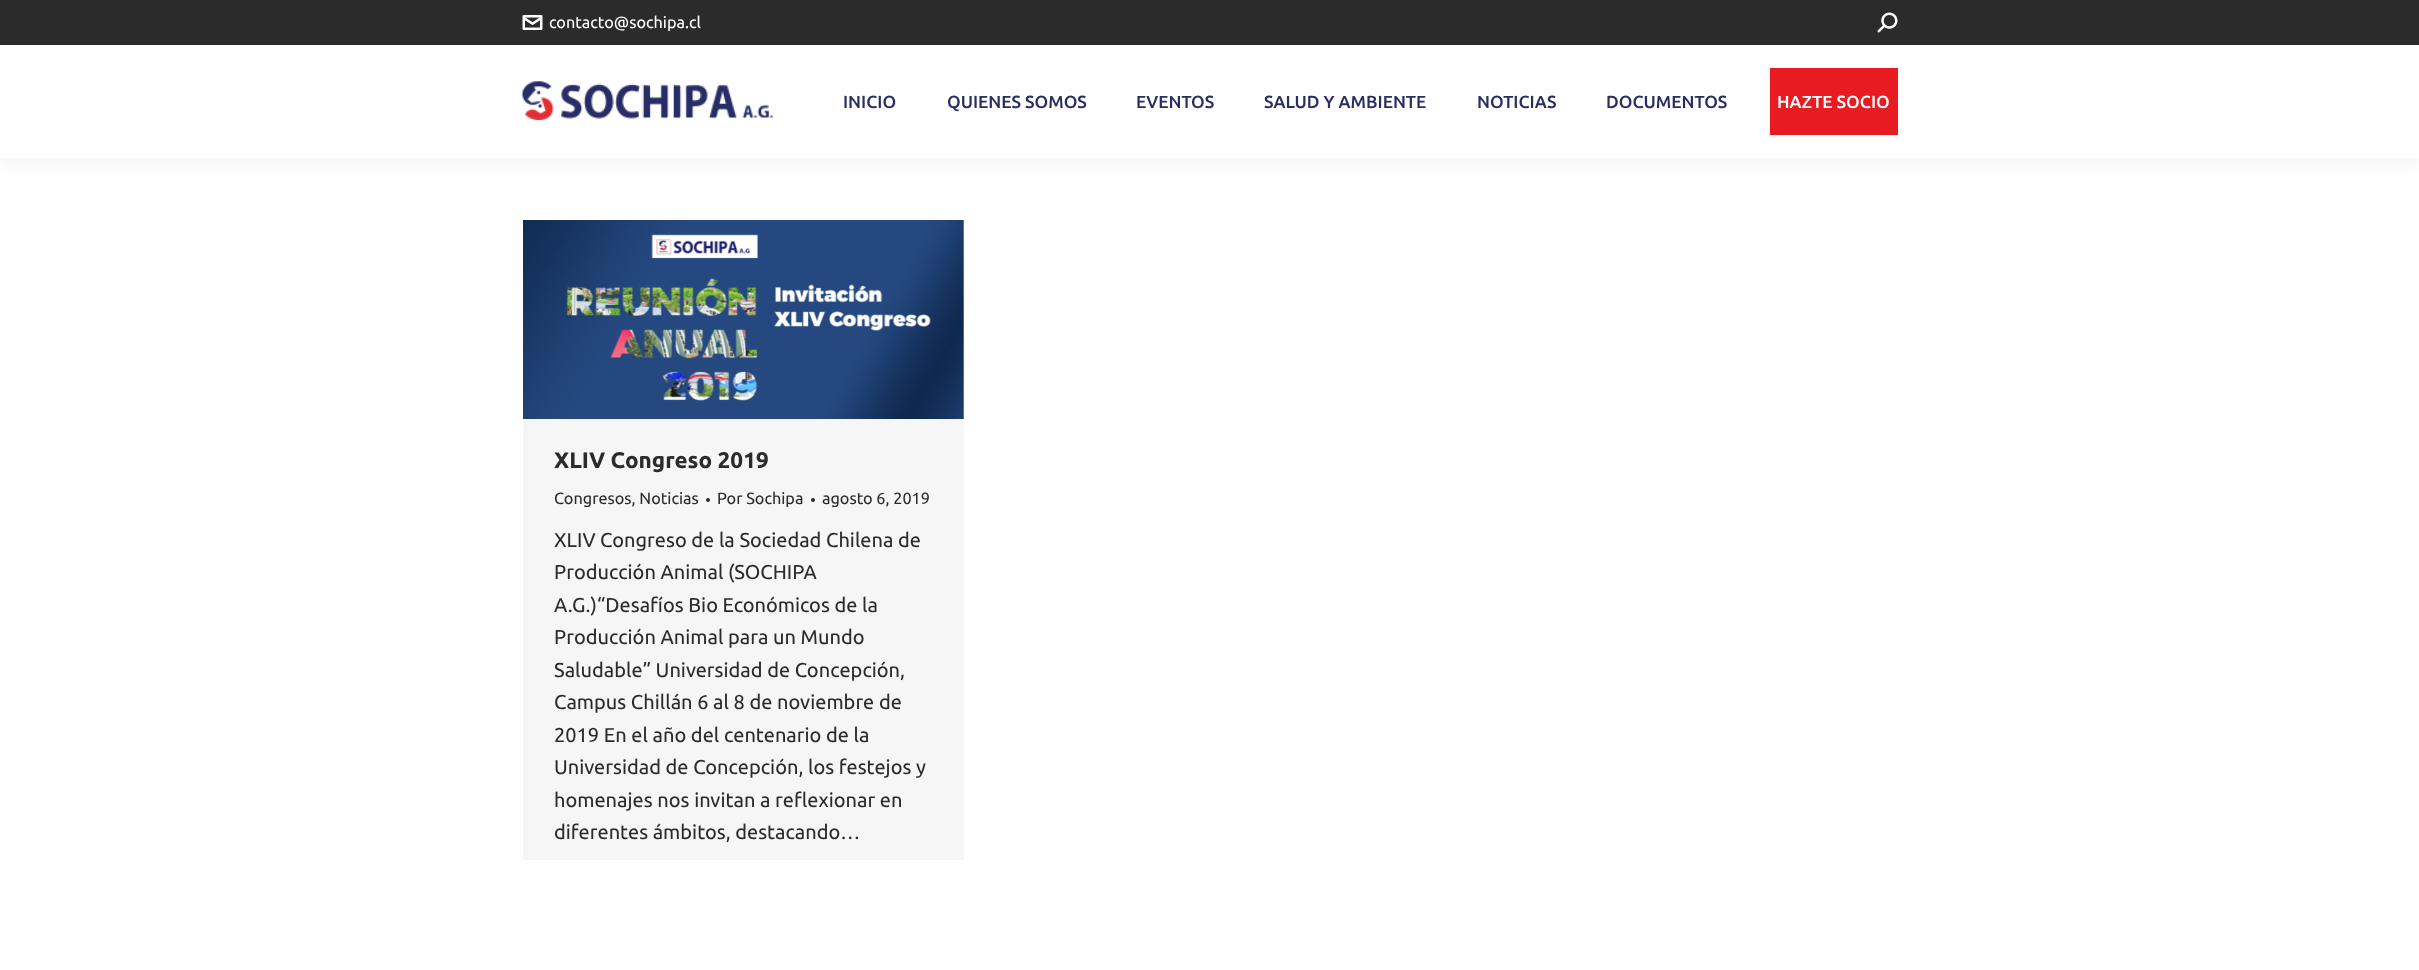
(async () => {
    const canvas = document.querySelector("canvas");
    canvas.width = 2419;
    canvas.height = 970;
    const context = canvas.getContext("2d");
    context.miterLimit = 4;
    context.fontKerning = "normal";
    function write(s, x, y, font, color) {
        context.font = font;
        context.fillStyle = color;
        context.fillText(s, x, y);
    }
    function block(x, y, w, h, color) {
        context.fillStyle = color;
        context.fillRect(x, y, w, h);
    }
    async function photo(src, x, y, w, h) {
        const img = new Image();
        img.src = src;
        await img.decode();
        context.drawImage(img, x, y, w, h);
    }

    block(0, 0, 2419, 970, "rgb(255, 255, 255)");
    context.fillStyle = "rgba(0, 0, 0, 0.07)";
    context.filter = "blur(9.5px)";
    context.beginPath();
    context.rect(-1, -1, 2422, 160);
    context.fill();
    context.filter = "none";
    block(0, 45, 2419, 113, "rgb(255, 255, 255)");
    block(0, 0, 2419, 45, "rgb(43, 43, 43)");
    await photo("media/1.png", 522, 15, 21, 15);
    write("contacto@sochipa.cl", 549, 28, "16.25px Ubuntu", "rgb(255, 255, 255)");
    await photo("media/2.png", 1877, 12, 21, 21);
    await photo("media/3.png", 522, 81, 251, 40);
    write("INICIO", 843, 108, "500 17.5px Ubuntu", "rgb(40, 45, 101)");
    write("QUIENES SOMOS", 947, 108, "500 17.5px Ubuntu", "rgb(40, 45, 101)");
    write("EVENTOS", 1136, 108, "500 17.5px Ubuntu", "rgb(40, 45, 101)");
    write("SALUD Y AMBIENTE", 1264, 108, "500 17.5px Ubuntu", "rgb(40, 45, 101)");
    write("NOTICIAS", 1477, 108, "500 17.5px Ubuntu", "rgb(40, 45, 101)");
    write("DOCUMENTOS", 1606, 108, "500 17.5px Ubuntu", "rgb(40, 45, 101)");
    block(1770, 68, 128, 67, "rgb(231, 27, 33)");
    write("HAZTE SOCIO", 1777, 108, "500 17.5px Ubuntu", "rgb(255, 255, 255)");
    block(523, 220, 441, 640, "rgb(246, 246, 246)");
    await photo("media/4.png", 523, 220, 441, 199);
    write("XLIV Congreso 2019", 554, 468, "bold 22.5px Ubuntu", "rgb(43, 43, 43)");
    write("Congresos, Noticias", 554, 504, "16.25px Ubuntu", "rgb(43, 43, 43)");
    context.beginPath();
    context.arc(708, 500, 2, 0, Math.PI * 2);
    context.fill();
    write("Por Sochipa", 717, 504, "16.25px Ubuntu", "rgb(43, 43, 43)");
    context.beginPath();
    context.arc(813, 500, 2, 0, Math.PI * 2);
    context.fill();
    write("agosto 6, 2019", 822, 504, "16.25px Ubuntu", "rgb(43, 43, 43)");
    write("XLIV Congreso de la Sociedad Chilena de", 554, 547, "20px Ubuntu", "rgb(43, 43, 43)");
    write("Producción Animal (SOCHIPA", 554, 579, "20px Ubuntu", "rgb(43, 43, 43)");
    write("A.G.)“Desafíos Bio Económicos de la", 554, 612, "20px Ubuntu", "rgb(43, 43, 43)");
    write("Producción Animal para un Mundo", 554, 644, "20px Ubuntu", "rgb(43, 43, 43)");
    write("Saludable” Universidad de Concepción,", 554, 677, "20px Ubuntu", "rgb(43, 43, 43)");
    write("Campus Chillán 6 al 8 de noviembre de", 554, 709, "20px Ubuntu", "rgb(43, 43, 43)");
    write("2019 En el año del centenario de la", 554, 742, "20px Ubuntu", "rgb(43, 43, 43)");
    write("Universidad de Concepción, los festejos y", 554, 774, "20px Ubuntu", "rgb(43, 43, 43)");
    write("homenajes nos invitan a reflexionar en", 554, 807, "20px Ubuntu", "rgb(43, 43, 43)");
    write("diferentes ámbitos, destacando…", 554, 839, "20px Ubuntu", "rgb(43, 43, 43)");
})();
